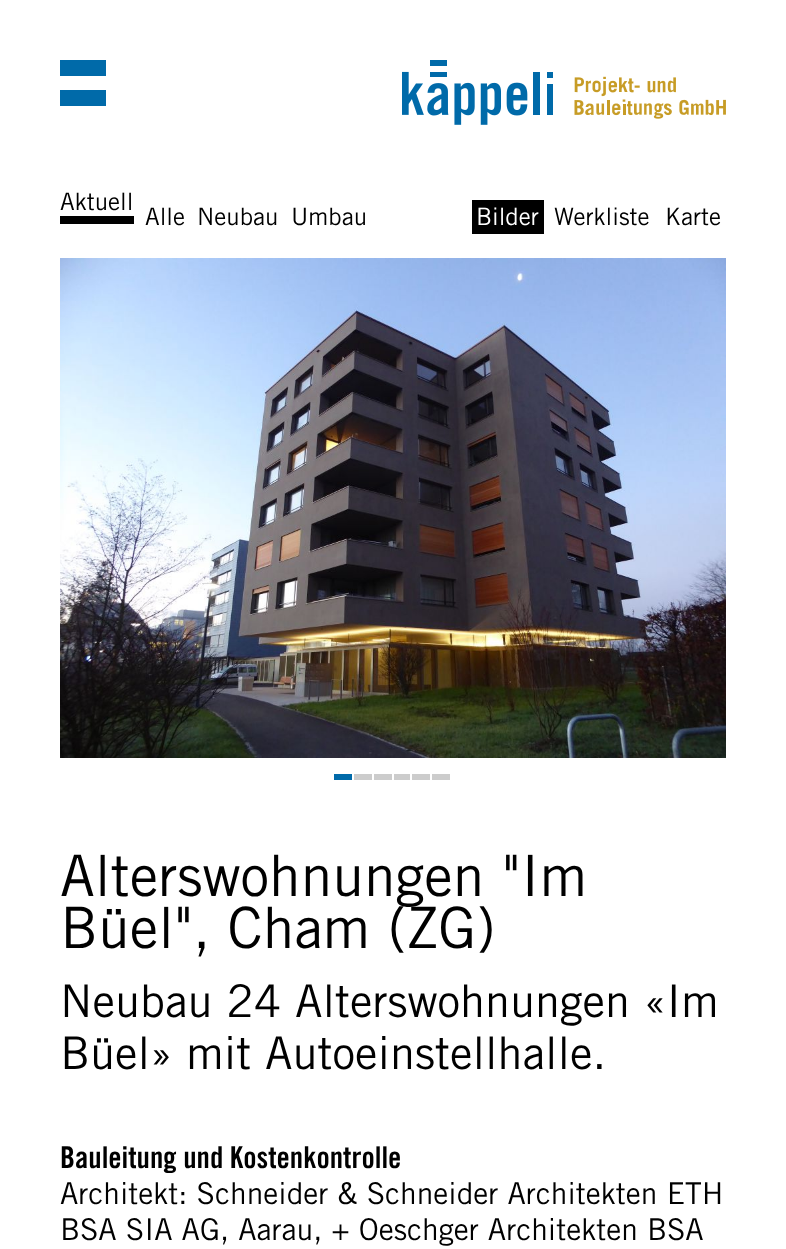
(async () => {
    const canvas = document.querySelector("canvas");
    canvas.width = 786;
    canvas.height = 1249;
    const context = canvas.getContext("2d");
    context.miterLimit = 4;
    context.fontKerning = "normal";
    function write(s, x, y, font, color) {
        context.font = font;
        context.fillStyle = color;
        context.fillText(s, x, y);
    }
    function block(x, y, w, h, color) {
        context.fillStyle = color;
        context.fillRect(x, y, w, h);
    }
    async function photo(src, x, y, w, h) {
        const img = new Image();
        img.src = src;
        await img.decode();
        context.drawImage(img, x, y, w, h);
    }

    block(0, 0, 786, 1249, "rgb(255, 255, 255)");
    block(60, 60, 46, 16, "rgb(0, 106, 169)");
    block(60, 90, 46, 16, "rgb(0, 106, 169)");
    await photo("media/1.png", 402, 60, 324, 65);
    write("Aktuell", 60, 210, "24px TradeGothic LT", "rgb(0, 0, 0)");
    block(60, 216, 74, 8, "rgb(0, 0, 0)");
    write("Alle", 145, 225, "24px TradeGothic LT", "rgb(0, 0, 0)");
    write("Neubau", 197, 225, "24px TradeGothic LT", "rgb(0, 0, 0)");
    write("Umbau", 291, 225, "24px TradeGothic LT", "rgb(0, 0, 0)");
    block(472, 200, 72, 34, "rgb(0, 0, 0)");
    write("Bilder", 476, 225, "24px TradeGothic LT", "rgb(255, 255, 255)");
    write("Werkliste", 554, 225, "24px TradeGothic LT", "rgb(0, 0, 0)");
    write("Karte", 665, 225, "24px TradeGothic LT", "rgb(0, 0, 0)");
    await photo("media/2.png", 60, 258, 666, 500);
    block(334, 774, 18, 6, "rgb(0, 106, 169)");
    block(354, 774, 18, 6, "rgb(204, 204, 204)");
    block(374, 774, 18, 6, "rgb(204, 204, 204)");
    block(394, 774, 16, 6, "rgb(204, 204, 204)");
    block(412, 774, 18, 6, "rgb(204, 204, 204)");
    block(432, 774, 18, 6, "rgb(204, 204, 204)");
    write("Alterswohnungen \"Im", 60, 896, "57px TradeGothic LT", "rgb(0, 0, 0)");
    write("Büel\", Cham (ZG)", 60, 948, "57px TradeGothic LT", "rgb(0, 0, 0)");
    write("Neubau 24 Alterswohnungen «Im", 60, 1017, "45px TradeGothic LT", "rgb(0, 0, 0)");
    write("Büel» mit Autoeinstellhalle.", 60, 1069, "45px TradeGothic LT", "rgb(0, 0, 0)");
    write("Bauleitung und Kostenkontrolle", 60, 1168, "bold 30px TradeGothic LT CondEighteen", "rgb(0, 0, 0)");
    write("Architekt: Schneider & Schneider Architekten ETH", 60, 1204, "30px TradeGothic LT", "rgb(0, 0, 0)");
    write("BSA SIA AG, Aarau, + Oeschger Architekten BSA", 60, 1240, "30px TradeGothic LT", "rgb(0, 0, 0)");
})();
